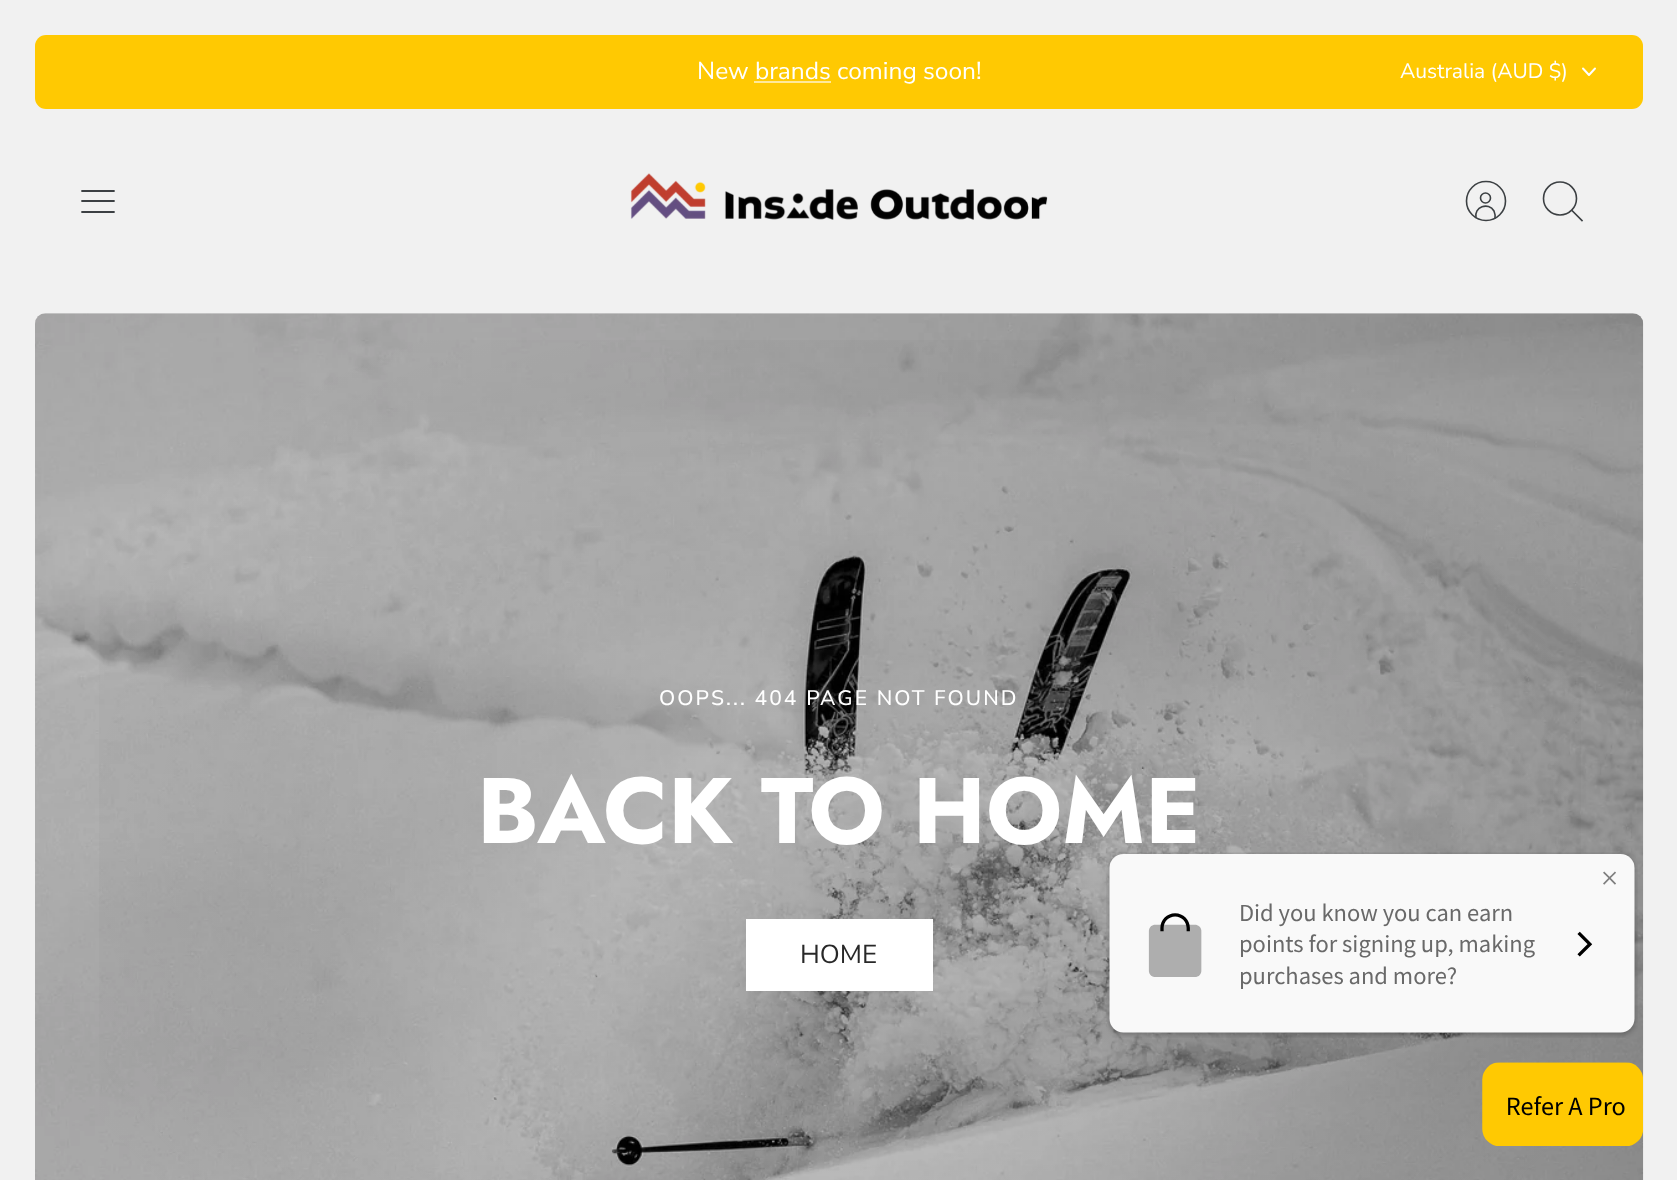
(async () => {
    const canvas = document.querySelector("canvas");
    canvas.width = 1677;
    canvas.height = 1180;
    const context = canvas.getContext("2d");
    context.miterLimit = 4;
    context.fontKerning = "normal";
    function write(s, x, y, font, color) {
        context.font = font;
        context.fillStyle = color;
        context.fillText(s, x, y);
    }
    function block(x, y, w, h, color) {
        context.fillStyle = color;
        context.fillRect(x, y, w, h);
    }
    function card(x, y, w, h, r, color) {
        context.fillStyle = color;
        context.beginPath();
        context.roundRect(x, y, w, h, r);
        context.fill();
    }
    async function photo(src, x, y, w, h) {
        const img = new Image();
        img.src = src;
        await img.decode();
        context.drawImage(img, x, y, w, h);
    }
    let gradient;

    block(0, 0, 1677, 1180, "rgb(241, 241, 241)");
    card(35, 35, 1608, 74, 11, "rgb(255, 201, 2)");
    write("New brands coming soon!", 697, 79, "24.5px Nunito Sans", "rgb(255, 255, 255)");
    block(754, 81, 77, 2, "rgb(255, 233, 154)");
    write("Australia (AUD $)", 1400, 78, "21px Nunito Sans", "rgb(255, 255, 255)");
    context.beginPath();
    context.moveTo(1583, 68.5);
    context.lineTo(1589, 75);
    context.lineTo(1595, 68.5);
    context.strokeStyle = "rgb(255, 255, 255)";
    context.lineWidth = 2;
    context.lineCap = "round";
    context.lineJoin = "round";
    context.stroke();
    context.beginPath();
    context.moveTo(82, 201);
    context.lineTo(114, 201);
    context.moveTo(82, 191);
    context.lineTo(114, 191);
    context.moveTo(82, 212);
    context.lineTo(114, 212);
    context.strokeStyle = "rgb(60, 64, 67)";
    context.lineWidth = 1.8;
    context.stroke();
    await photo("media/1.png", 630, 173, 418, 47);
    context.beginPath();
    context.moveTo(1495, 218.5);
    context.bezierCurveTo(1495.5, 216, 1495, 213.5, 1494, 211);
    context.bezierCurveTo(1488.5, 201.5, 1473.5, 207, 1476, 218);
    context.lineWidth = 1.6;
    context.lineCap = "butt";
    context.lineJoin = "miter";
    context.stroke();
    context.beginPath();
    context.arc(1485.5, 198, 5, 0, Math.PI * 2);
    context.stroke();
    context.beginPath();
    context.arc(1486, 201, 19.5, 0, Math.PI * 2);
    context.stroke();
    context.beginPath();
    context.arc(1560, 198.5, 16.5, 0, Math.PI * 2);
    context.stroke();
    context.beginPath();
    context.moveTo(1572.5, 211);
    context.lineTo(1582, 220.5);
    context.lineCap = "square";
    context.stroke();
    card(35, 313, 1608, 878, 11, "rgb(255, 255, 255)");
    card(35, 313, 1608, 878, 11, "rgba(18, 18, 18, 0.1)");
    await photo("media/2.png", 35, 313, 1609, 867);
    gradient = context.createRadialGradient(840, 1242.93, 0, 840, 1242.93, 1237);
    gradient.addColorStop(0, "rgba(0, 0, 0, 0.15)");
    gradient.addColorStop(0.7, "rgba(0, 0, 0, 0)");
    context.fillStyle = gradient;
    context.beginPath();
    context.rect(99, 340, 1482, 840);
    context.save();
    context.clip();
    context.scale(1, 834 / 1237);
    context.fillRect(0, 0, 1677, 1751);
    context.restore();
    context.letterSpacing = "2.1px";
    write("OOPS... 404 PAGE NOT FOUND", 659, 705, "500 21px Nunito Sans", "rgb(255, 255, 255)");
    context.letterSpacing = "0px";
    write("BACK TO HOME", 477, 843, "bold 93px Jost", "rgb(255, 255, 255)");
    block(746, 919, 187, 72, "rgb(255, 255, 255)");
    write("HOME", 800, 963, "26px Nunito Sans", "rgb(40, 40, 40)");
    await photo("media/3.png", 1106, 852, 532, 186);
    await photo("media/4.png", 1482, 1062, 161, 84);
})();
